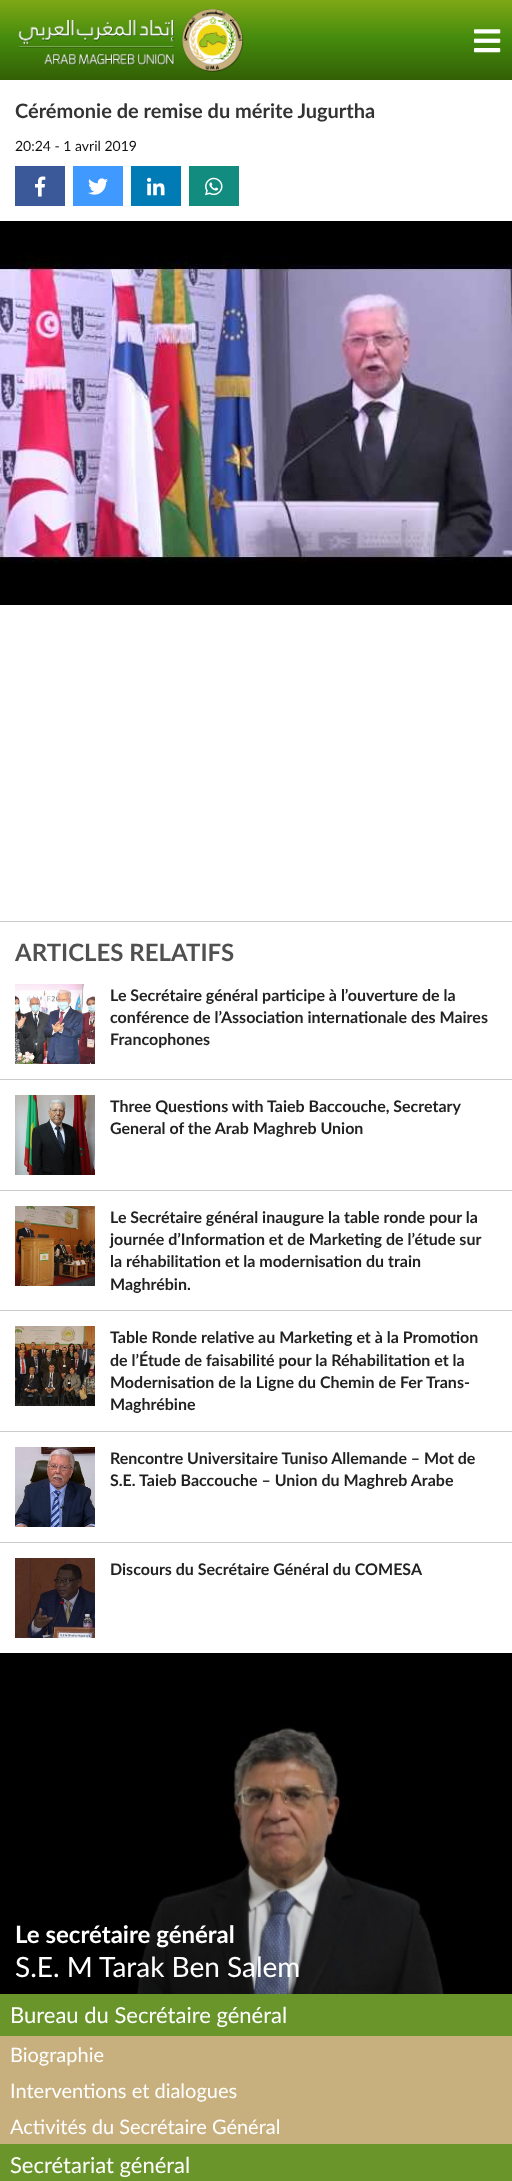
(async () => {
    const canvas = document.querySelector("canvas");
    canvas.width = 512;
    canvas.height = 2181;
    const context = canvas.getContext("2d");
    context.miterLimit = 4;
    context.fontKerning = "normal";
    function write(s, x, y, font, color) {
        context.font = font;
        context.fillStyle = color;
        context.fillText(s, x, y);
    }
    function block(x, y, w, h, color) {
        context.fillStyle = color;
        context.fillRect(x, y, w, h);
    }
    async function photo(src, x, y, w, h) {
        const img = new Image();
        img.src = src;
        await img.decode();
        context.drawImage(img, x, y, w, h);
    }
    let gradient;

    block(0, 0, 512, 2181, "rgb(255, 255, 255)");
    gradient = context.createLinearGradient(256, 0, 256, 80);
    gradient.addColorStop(0, "rgb(126, 167, 22)");
    gradient.addColorStop(0.48, "rgb(69, 139, 13)");
    gradient.addColorStop(1, "rgb(51, 95, 5)");
    context.fillStyle = gradient;
    context.fillRect(0, 0, 512, 80);
    await photo("media/1.png", 18, 9, 226, 63);
    await photo("media/2.png", 474, 29, 27, 24);
    write("Cérémonie de remise du mérite Jugurtha", 15, 118, "bold 20px Lato", "rgb(51, 51, 51)");
    write("20:24 - 1 avril 2019", 15, 151, "14px Lato", "rgb(17, 17, 17)");
    block(15, 166, 50, 40, "rgb(59, 89, 152)");
    await photo("media/3.png", 35, 176, 11, 21);
    block(73, 166, 50, 40, "rgb(64, 153, 255)");
    await photo("media/4.png", 88, 178, 20, 17);
    block(131, 166, 50, 40, "rgb(0, 123, 182)");
    await photo("media/5.png", 147, 177, 18, 19);
    block(189, 166, 50, 40, "rgb(18, 140, 126)");
    await photo("media/6.png", 205, 177, 18, 19);
    await photo("media/7.png", 0, 221, 512, 384);
    block(0, 921, 512, 1, "rgb(204, 204, 204)");
    write("ARTICLES RELATIFS", 15, 961, "bold 24px Lato", "rgb(80, 80, 80)");
    block(0, 1079, 512, 1, "rgb(204, 204, 204)");
    await photo("media/8.png", 15, 984, 80, 80);
    write("Le Secrétaire général participe à l’ouverture de la", 110, 1001, "bold 16px Lato", "rgb(34, 34, 34)");
    write("conférence de l’Association internationale des Maires", 110, 1023, "bold 16px Lato", "rgb(34, 34, 34)");
    write("Francophones", 110, 1045, "bold 16px Lato", "rgb(34, 34, 34)");
    block(0, 1190, 512, 1, "rgb(204, 204, 204)");
    await photo("media/9.png", 15, 1095, 80, 80);
    write("Three Questions with Taieb Baccouche, Secretary", 110, 1112, "bold 16px Lato", "rgb(34, 34, 34)");
    write("General of the Arab Maghreb Union", 110, 1134, "bold 16px Lato", "rgb(34, 34, 34)");
    block(0, 1310, 512, 1, "rgb(204, 204, 204)");
    await photo("media/10.png", 15, 1206, 80, 80);
    write("Le Secrétaire général inaugure la table ronde pour la", 110, 1223, "bold 16px Lato", "rgb(34, 34, 34)");
    write("journée d’Information et de Marketing de l’étude sur", 110, 1245, "bold 16px Lato", "rgb(34, 34, 34)");
    write("la réhabilitation et la modernisation du train", 110, 1267, "bold 16px Lato", "rgb(34, 34, 34)");
    write("Maghrébin.", 110, 1290, "bold 16px Lato", "rgb(34, 34, 34)");
    block(0, 1431, 512, 1, "rgb(204, 204, 204)");
    await photo("media/11.png", 15, 1326, 80, 80);
    write("Table Ronde relative au Marketing et à la Promotion", 110, 1343, "bold 16px Lato", "rgb(34, 34, 34)");
    write("de l’Étude de faisabilité pour la Réhabilitation et la", 110, 1366, "bold 16px Lato", "rgb(34, 34, 34)");
    write("Modernisation de la Ligne du Chemin de Fer Trans-", 110, 1388, "bold 16px Lato", "rgb(34, 34, 34)");
    write("Maghrébine", 110, 1410, "bold 16px Lato", "rgb(34, 34, 34)");
    block(0, 1542, 512, 1, "rgb(204, 204, 204)");
    await photo("media/12.png", 15, 1447, 80, 80);
    write("Rencontre Universitaire Tuniso Allemande – Mot de", 110, 1464, "bold 16px Lato", "rgb(34, 34, 34)");
    write("S.E. Taieb Baccouche – Union du Maghreb Arabe", 110, 1486, "bold 16px Lato", "rgb(34, 34, 34)");
    await photo("media/13.png", 15, 1558, 80, 80);
    write("Discours du Secrétaire Général du COMESA", 110, 1575, "bold 16px Lato", "rgb(34, 34, 34)");
    block(0, 2036, 512, 108, "rgb(200, 176, 126)");
    await photo("media/14.png", 0, 1653, 512, 341);
    write("Le secrétaire général", 15, 1943, "bold 24px Lato", "rgb(255, 255, 255)");
    write("S.E. M Tarak Ben Salem", 15, 1977, "28px Lato", "rgb(255, 255, 255)");
    block(0, 1994, 512, 42, "rgb(106, 149, 43)");
    write("Bureau du Secrétaire général", 10, 2023, "22px Lato", "rgb(255, 255, 255)");
    write("Biographie", 10, 2062, "20px Lato", "rgb(255, 255, 255)");
    write("Interventions et dialogues", 10, 2098, "20px Lato", "rgb(255, 255, 255)");
    write("Activités du Secrétaire Général", 10, 2134, "20px Lato", "rgb(255, 255, 255)");
    block(0, 2144, 512, 37, "rgb(106, 149, 43)");
    write("Secrétariat général", 10, 2173, "22px Lato", "rgb(255, 255, 255)");
})();
